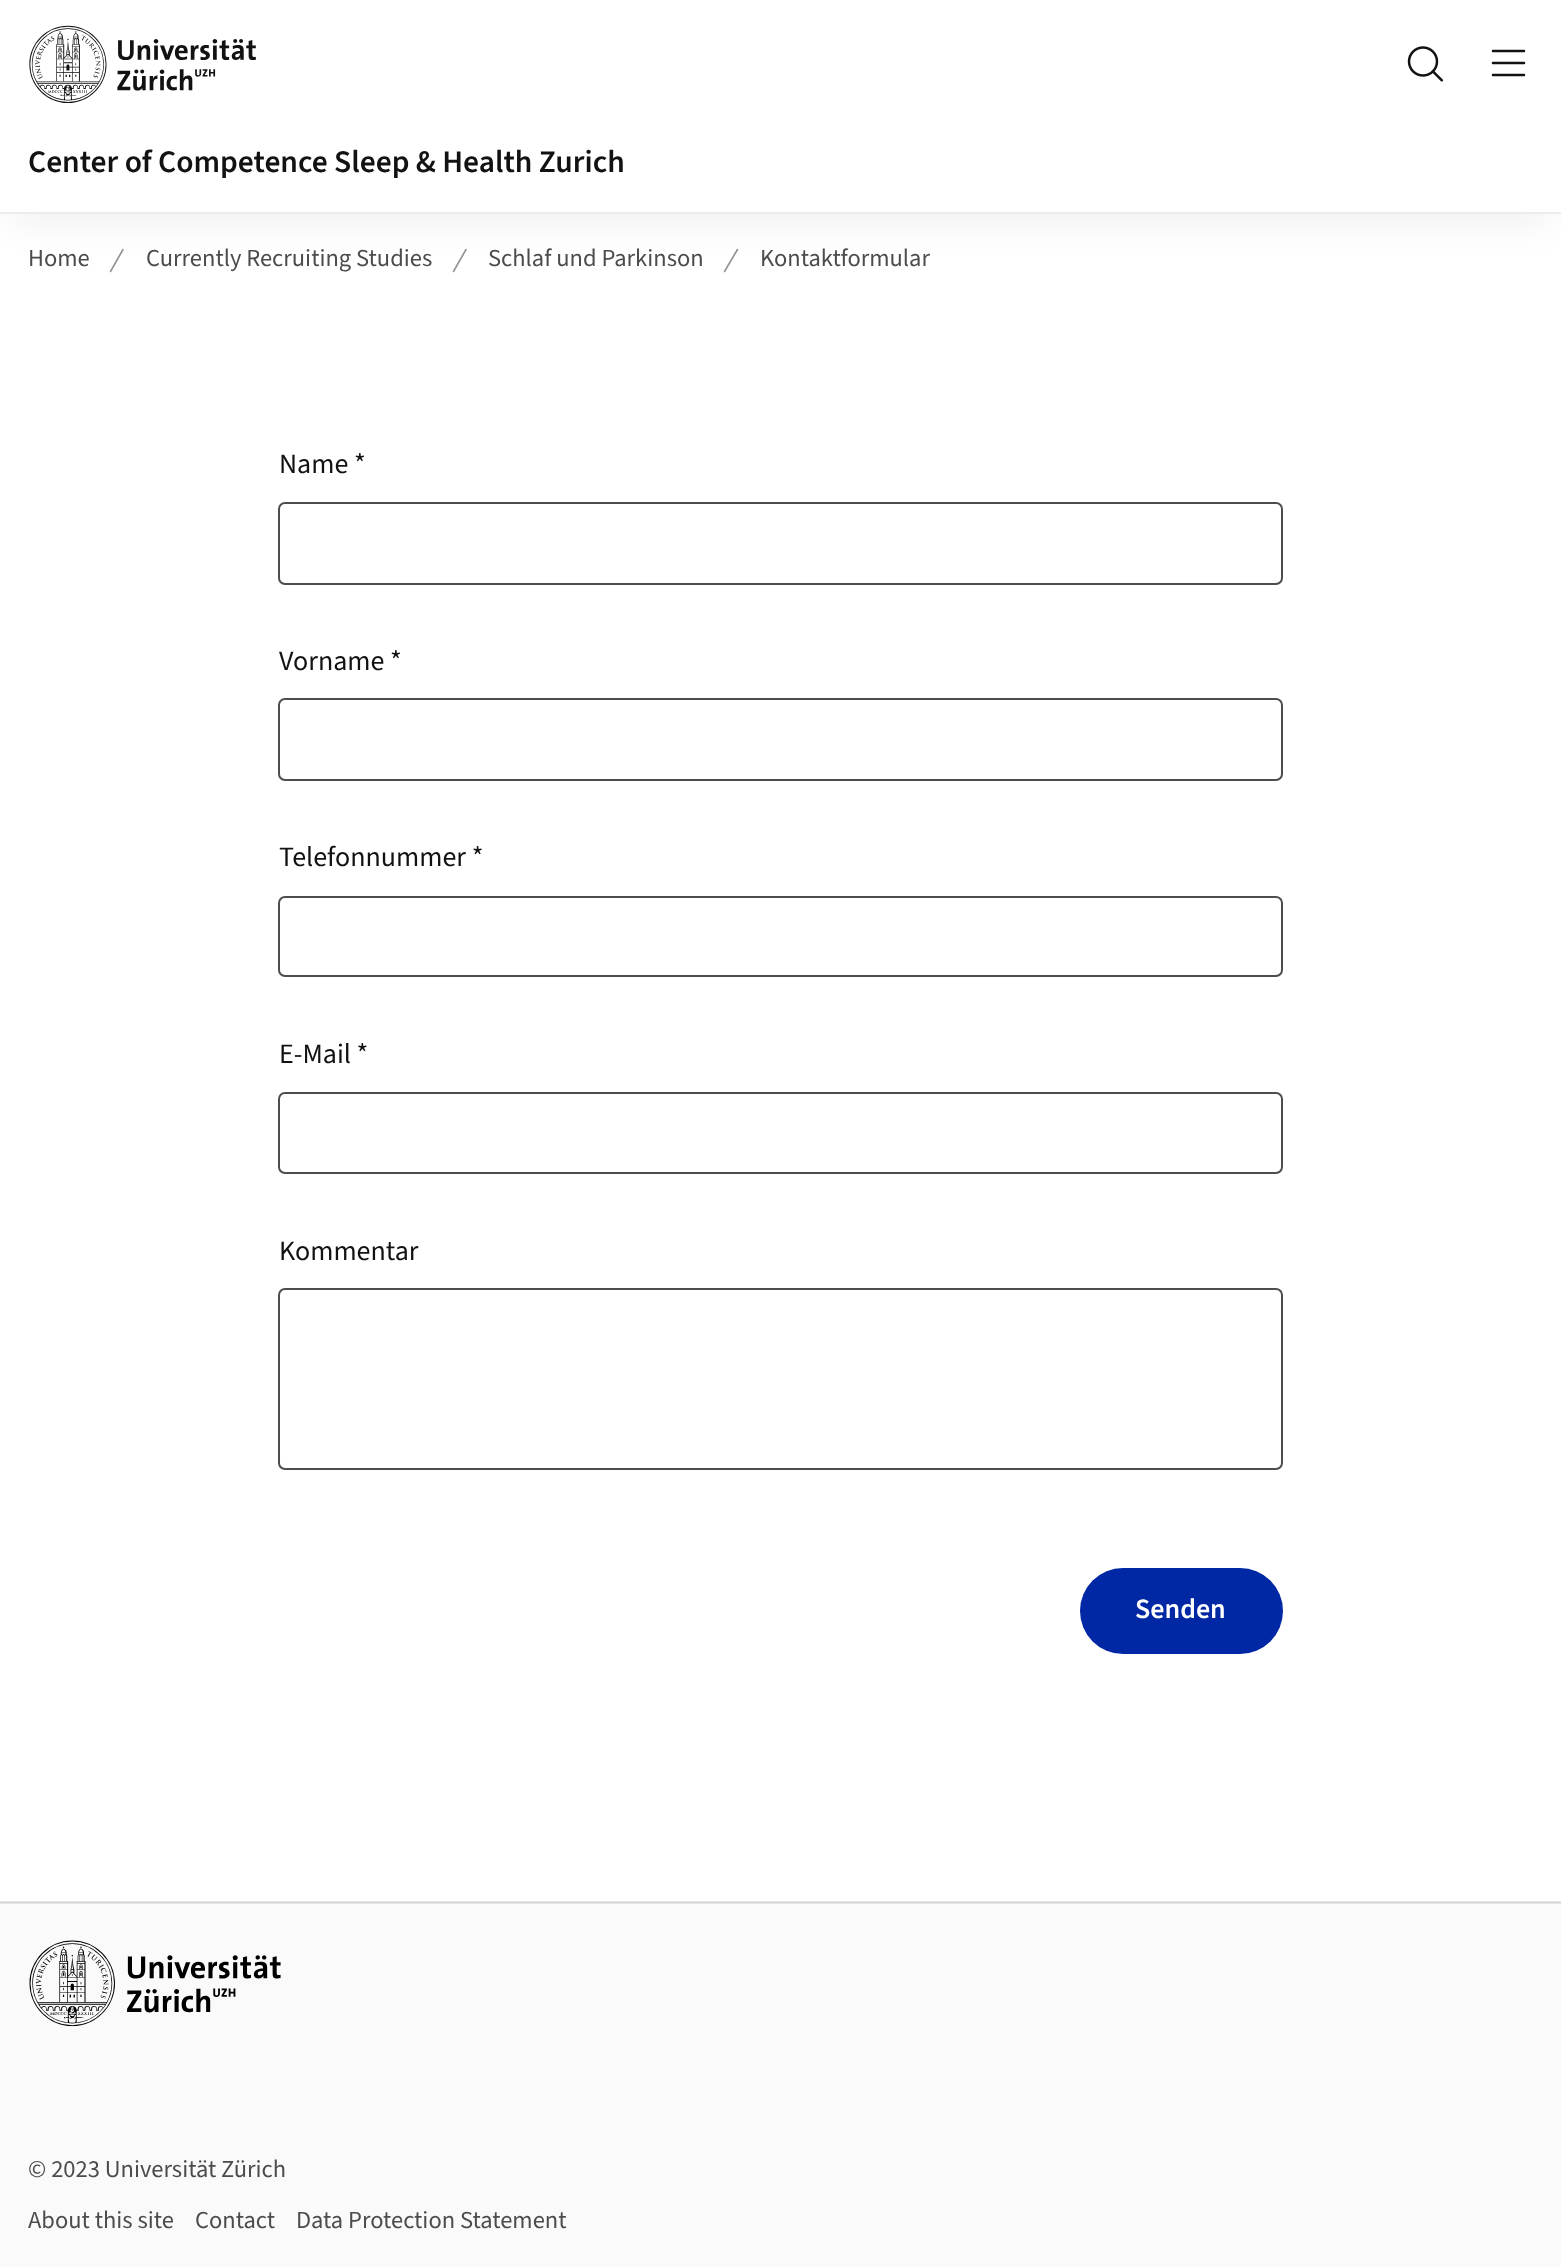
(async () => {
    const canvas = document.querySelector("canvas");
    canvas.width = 1561;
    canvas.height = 2267;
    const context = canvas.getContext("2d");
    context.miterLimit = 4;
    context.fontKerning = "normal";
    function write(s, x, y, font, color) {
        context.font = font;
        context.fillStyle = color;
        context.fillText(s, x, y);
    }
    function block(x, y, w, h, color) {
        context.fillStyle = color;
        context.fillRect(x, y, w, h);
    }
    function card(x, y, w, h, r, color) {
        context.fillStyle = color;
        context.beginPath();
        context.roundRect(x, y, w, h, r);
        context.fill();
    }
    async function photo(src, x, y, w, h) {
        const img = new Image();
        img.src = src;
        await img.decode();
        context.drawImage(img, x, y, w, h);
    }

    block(0, 0, 1561, 2267, "rgb(255, 255, 255)");
    context.beginPath();
    context.moveTo(110.5, 271.5);
    context.lineTo(123, 249.5);
    context.strokeStyle = "rgb(148, 148, 148)";
    context.lineWidth = 1.6;
    context.lineCap = "round";
    context.stroke();
    context.beginPath();
    context.moveTo(453.5, 271.5);
    context.lineTo(466, 249.5);
    context.stroke();
    context.beginPath();
    context.moveTo(724.5, 271.5);
    context.lineTo(737.5, 249.5);
    context.stroke();
    context.fillStyle = "rgba(18, 18, 18, 0.07)";
    context.filter = "blur(19px)";
    context.beginPath();
    context.rect(7, 19, 1547, 200);
    context.fill();
    context.filter = "none";
    block(0, 0, 1561, 212, "rgb(255, 255, 255)");
    block(0, 212, 1561, 2, "rgb(236, 236, 236)");
    await photo("media/1.png", 29, 25, 227, 78);
    await photo("media/2.png", 1407, 46, 37, 36);
    context.beginPath();
    context.moveTo(1493, 51);
    context.lineTo(1524, 51);
    context.moveTo(1493, 63);
    context.lineTo(1524, 63);
    context.moveTo(1493, 75);
    context.lineTo(1524, 75);
    context.strokeStyle = "rgb(18, 18, 18)";
    context.lineWidth = 2.6;
    context.lineJoin = "round";
    context.stroke();
    write("Center of Competence Sleep & Health Zurich", 28, 172, "600 31.5px 'Source Sans 3'", "rgb(18, 18, 18)");
    write("Home", 28, 266, "24.5px 'Source Sans 3'", "rgb(76, 76, 76)");
    write("Currently Recruiting Studies", 146, 266, "24.5px 'Source Sans 3'", "rgb(76, 76, 76)");
    write("Schlaf und Parkinson", 488, 266, "24.5px 'Source Sans 3'", "rgb(76, 76, 76)");
    write("Kontaktformular", 760, 266, "24.5px 'Source Sans 3'", "rgb(76, 76, 76)");
    write("Name *", 279, 473, "28px 'Source Sans 3'", "rgb(18, 18, 18)");
    context.beginPath();
    context.roundRect(279, 503, 1003, 81, 6);
    context.strokeStyle = "rgb(77, 77, 77)";
    context.lineWidth = 2;
    context.lineJoin = "miter";
    context.stroke();
    write("Vorname *", 279, 670, "28px 'Source Sans 3'", "rgb(18, 18, 18)");
    context.beginPath();
    context.roundRect(279, 699, 1003, 81, 6);
    context.stroke();
    write("Telefonnummer *", 279, 866, "28px 'Source Sans 3'", "rgb(18, 18, 18)");
    context.beginPath();
    context.roundRect(279, 897, 1003, 79, 6);
    context.stroke();
    write("E-Mail *", 279, 1063, "28px 'Source Sans 3'", "rgb(18, 18, 18)");
    context.beginPath();
    context.roundRect(279, 1093, 1003, 80, 6);
    context.stroke();
    write("Kommentar", 279, 1260, "28px 'Source Sans 3'", "rgb(18, 18, 18)");
    context.beginPath();
    context.roundRect(279, 1289, 1003, 180, 6);
    context.stroke();
    card(1080, 1568, 203, 86, 43, "rgb(0, 40, 165)");
    write("Senden", 1135, 1618, "600 28px 'Source Sans 3'", "rgb(255, 255, 255)");
    block(0, 1904, 1561, 363, "rgb(250, 250, 250)");
    block(0, 1903, 1561, 1, "rgb(230, 230, 230)");
    block(0, 1901, 1561, 1, "rgb(230, 230, 230)");
    block(0, 1902, 1561, 1, "rgb(212, 212, 212)");
    await photo("media/3.png", 29, 1940, 252, 87);
    write("© 2023 Universität Zürich", 28, 2177, "24.5px 'Source Sans 3'", "rgb(76, 76, 76)");
    write("About this site", 28, 2228, "24.5px 'Source Sans 3'", "rgb(76, 76, 76)");
    write("Contact", 195, 2228, "24.5px 'Source Sans 3'", "rgb(76, 76, 76)");
    write("Data Protection Statement", 296, 2228, "24.5px 'Source Sans 3'", "rgb(76, 76, 76)");
})();
